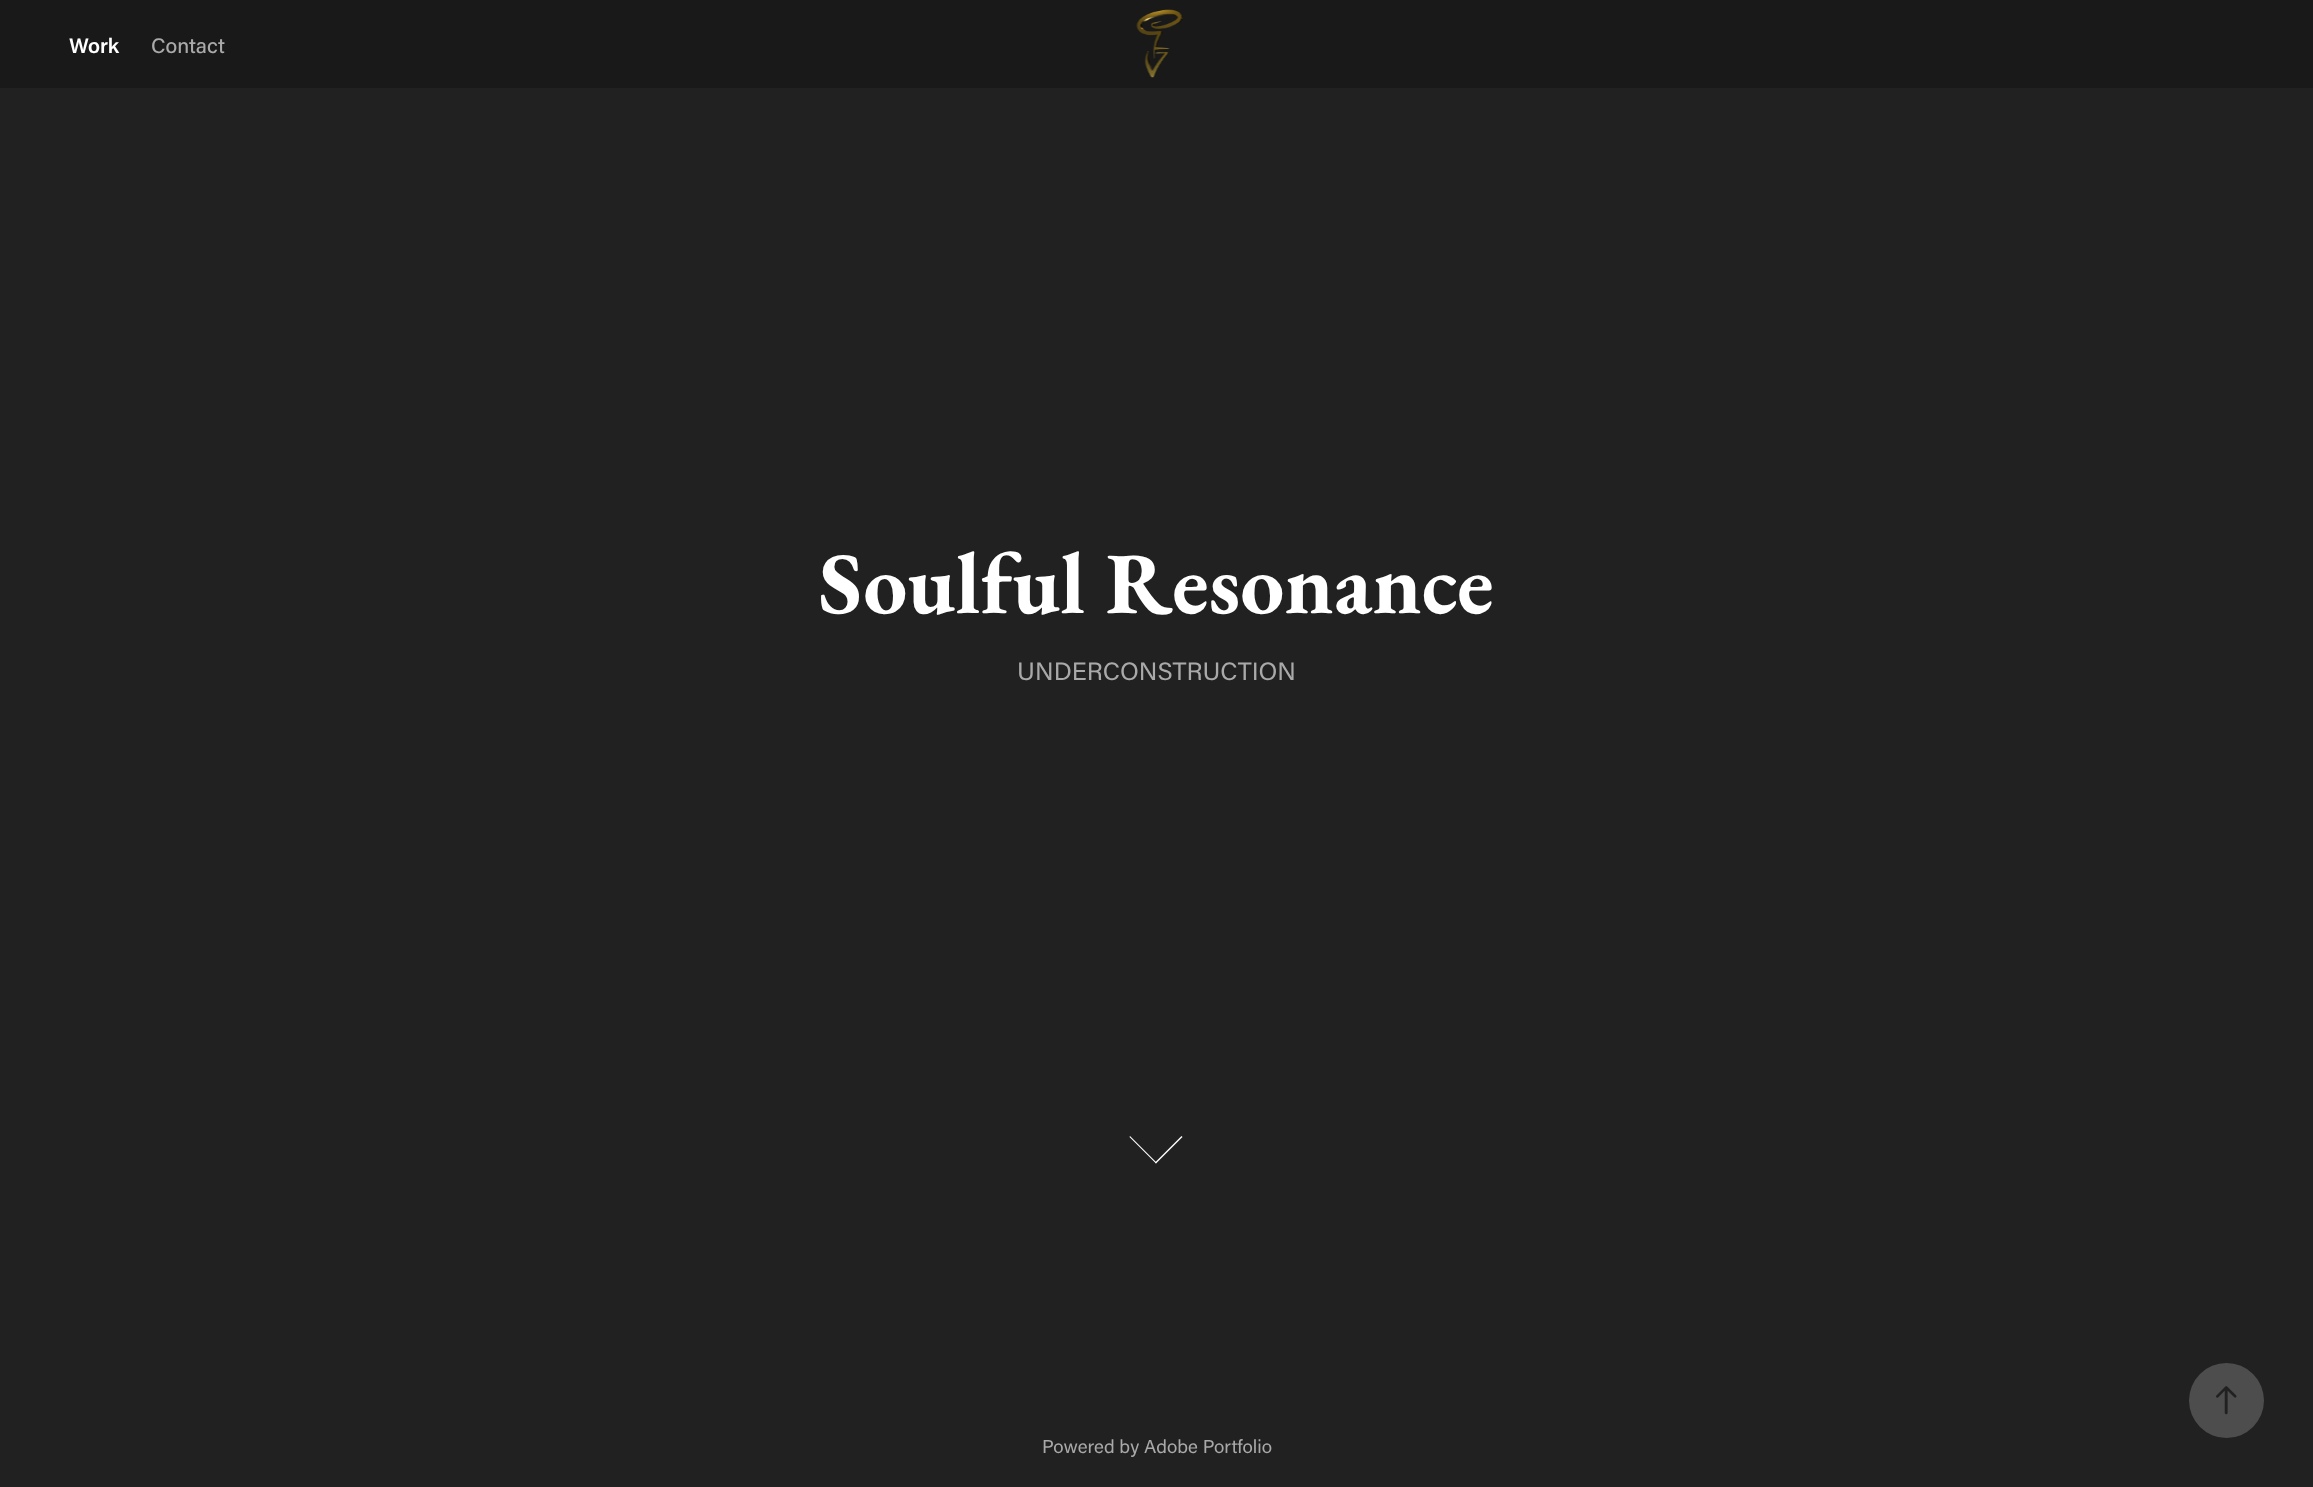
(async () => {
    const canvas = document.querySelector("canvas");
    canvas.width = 2313;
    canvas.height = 1487;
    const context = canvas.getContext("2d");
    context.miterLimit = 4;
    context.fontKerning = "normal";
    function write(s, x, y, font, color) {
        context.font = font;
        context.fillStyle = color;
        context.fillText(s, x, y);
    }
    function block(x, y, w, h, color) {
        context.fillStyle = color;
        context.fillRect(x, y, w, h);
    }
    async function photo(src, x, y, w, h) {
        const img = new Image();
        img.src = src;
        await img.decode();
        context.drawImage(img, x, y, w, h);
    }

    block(0, 0, 2313, 1487, "rgb(33, 33, 33)");
    block(0, 0, 2313, 88, "rgb(25, 25, 25)");
    write("Work", 69, 53, "600 21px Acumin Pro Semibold", "rgb(255, 255, 255)");
    write("Contact", 151, 53, "500 21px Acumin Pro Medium", "rgb(169, 169, 169)");
    await photo("media/1.png", 1136, 9, 47, 69);
    write("Soulful Resonance", 819, 613, "bold 87.5px EB Garamond", "rgb(255, 255, 255)");
    write("UNDERCONSTRUCTION", 1017, 680, "25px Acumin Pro", "rgb(169, 169, 169)");
    context.fillStyle = "rgb(255, 255, 255)";
    context.beginPath();
    context.moveTo(1181.5, 1136);
    context.lineTo(1182.5, 1137);
    context.lineTo(1156, 1163.5);
    context.lineTo(1155, 1162.5);
    context.closePath();
    context.fill();
    context.beginPath();
    context.moveTo(1130, 1136);
    context.lineTo(1156.5, 1162.5);
    context.lineTo(1156, 1163.5);
    context.lineTo(1129.5, 1137);
    context.closePath();
    context.fill();
    context.fillStyle = "rgb(77, 77, 77)";
    context.beginPath();
    context.arc(2226.5, 1400.5, 37.5, 0, Math.PI * 2);
    context.fill();
    await photo("media/2.png", 2216, 1386, 21, 29);
    write("Powered by Adobe Portfolio", 1042, 1453, "18.75px Acumin Pro", "rgb(169, 169, 169)");
})();
